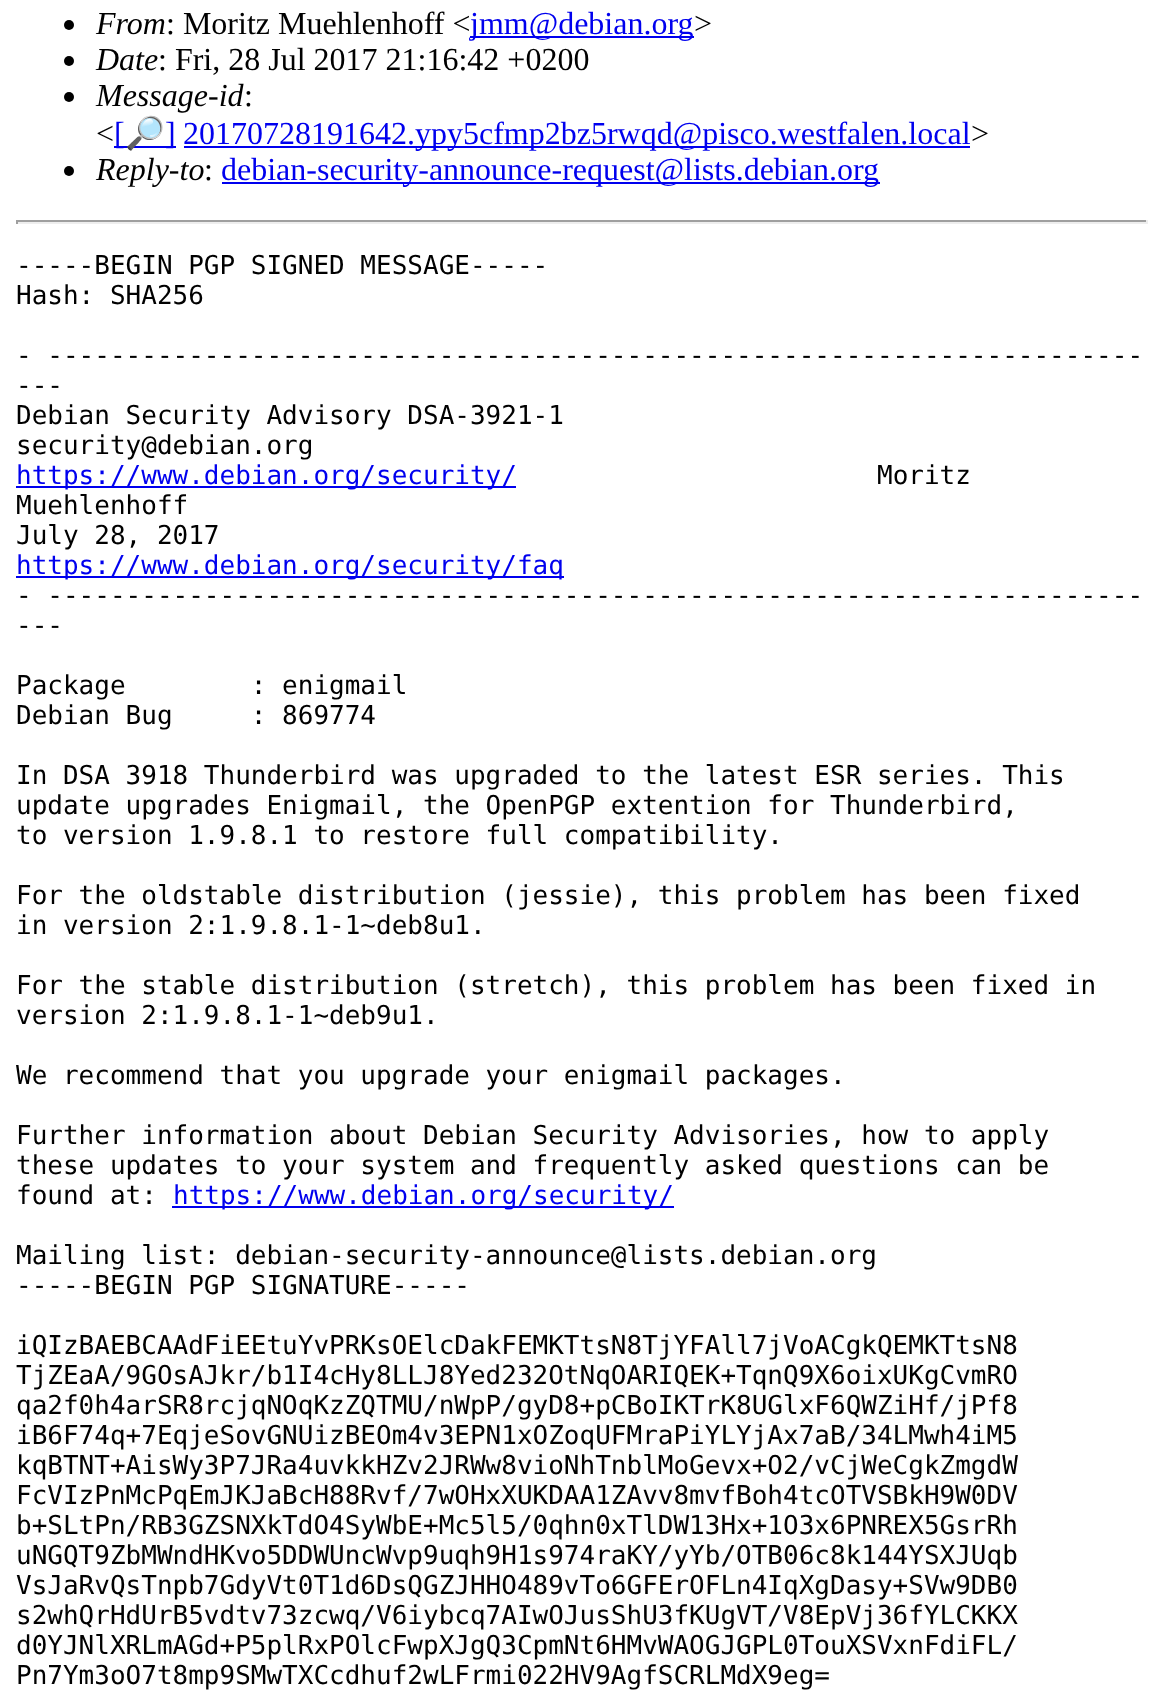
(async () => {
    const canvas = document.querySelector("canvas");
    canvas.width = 1163;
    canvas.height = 1708;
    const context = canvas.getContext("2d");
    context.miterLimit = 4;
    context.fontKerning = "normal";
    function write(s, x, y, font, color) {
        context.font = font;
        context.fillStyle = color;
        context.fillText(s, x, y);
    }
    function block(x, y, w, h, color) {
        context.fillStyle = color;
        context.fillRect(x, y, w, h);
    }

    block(0, 0, 1163, 1708, "rgb(255, 255, 255)");
    context.fillStyle = "rgb(0, 0, 0)";
    context.beginPath();
    context.arc(69, 25, 5, 0, Math.PI * 2);
    context.fill();
    write("From", 96, 34, "italic 32px Liberation Serif", "rgb(0, 0, 0)");
    write(": Moritz Muehlenhoff <", 166, 34, "32px Liberation Serif", "rgb(0, 0, 0)");
    block(470, 36, 224, 2, "rgb(0, 0, 238)");
    write("jmm@debian.org", 470, 34, "32px Liberation Serif", "rgb(0, 0, 238)");
    write(">", 694, 34, "32px Liberation Serif", "rgb(0, 0, 0)");
    context.beginPath();
    context.arc(69, 61, 5, 0, Math.PI * 2);
    context.fill();
    write("Date", 96, 70, "italic 32px Liberation Serif", "rgb(0, 0, 0)");
    write(": Fri, 28 Jul 2017 21:16:42 +0200", 158, 70, "32px Liberation Serif", "rgb(0, 0, 0)");
    context.beginPath();
    context.arc(69, 97, 5, 0, Math.PI * 2);
    context.fill();
    write("Message-id", 96, 106, "italic 32px Liberation Serif", "rgb(0, 0, 0)");
    write(":", 244, 106, "32px Liberation Serif", "rgb(0, 0, 0)");
    write("<", 96, 144, "32px Liberation Serif", "rgb(0, 0, 0)");
    block(114, 146, 62, 2, "rgb(0, 0, 238)");
    write("[", 114, 144, "32px Liberation Serif", "rgb(0, 0, 238)");
    write("🔎", 125, 144, "32px Noto Color Emoji", "rgb(0, 0, 238)");
    write("]", 165, 144, "32px Liberation Serif", "rgb(0, 0, 238)");
    block(184, 146, 786, 2, "rgb(0, 0, 238)");
    write("20170728191642.ypy5cfmp2bz5rwqd@pisco.westfalen.local", 183, 144, "32px Liberation Serif", "rgb(0, 0, 238)");
    write(">", 971, 144, "32px Liberation Serif", "rgb(0, 0, 0)");
    context.beginPath();
    context.arc(69, 171, 5, 0, Math.PI * 2);
    context.fill();
    write("Reply-to", 96, 180, "italic 32px Liberation Serif", "rgb(0, 0, 0)");
    write(":", 204, 180, "32px Liberation Serif", "rgb(0, 0, 0)");
    block(222, 182, 658, 2, "rgb(0, 0, 238)");
    write("debian-security-announce-request@lists.debian.org", 221, 180, "32px Liberation Serif", "rgb(0, 0, 238)");
    block(16, 220, 1132, 2, "rgb(159, 159, 159)");
    block(1146, 220, 2, 4, "rgb(238, 238, 238)");
    block(16, 222, 1132, 2, "rgb(238, 238, 238)");
    block(16, 220, 2, 4, "rgb(159, 159, 159)");
    write("-----BEGIN PGP SIGNED MESSAGE-----", 16, 274, "26px DejaVu Sans Mono", "rgb(0, 0, 0)");
    write("Hash: SHA256", 16, 304, "26px DejaVu Sans Mono", "rgb(0, 0, 0)");
    write("- ----------------------------------------------------------------------", 16, 364, "26px DejaVu Sans Mono", "rgb(0, 0, 0)");
    write("---", 16, 394, "26px DejaVu Sans Mono", "rgb(0, 0, 0)");
    write("Debian Security Advisory DSA-3921-1", 16, 424, "26px DejaVu Sans Mono", "rgb(0, 0, 0)");
    write("security@debian.org", 16, 454, "26px DejaVu Sans Mono", "rgb(0, 0, 0)");
    block(16, 486, 500, 2, "rgb(0, 0, 238)");
    write("https://www.debian.org/security/", 16, 484, "26px DejaVu Sans Mono", "rgb(0, 0, 238)");
    write("Moritz", 877, 484, "26px DejaVu Sans Mono", "rgb(0, 0, 0)");
    write("Muehlenhoff", 16, 514, "26px DejaVu Sans Mono", "rgb(0, 0, 0)");
    write("July 28, 2017", 16, 544, "26px DejaVu Sans Mono", "rgb(0, 0, 0)");
    block(16, 576, 548, 2, "rgb(0, 0, 238)");
    write("https://www.debian.org/security/faq", 16, 574, "26px DejaVu Sans Mono", "rgb(0, 0, 238)");
    write("- ----------------------------------------------------------------------", 16, 604, "26px DejaVu Sans Mono", "rgb(0, 0, 0)");
    write("---", 16, 634, "26px DejaVu Sans Mono", "rgb(0, 0, 0)");
    write("Package        : enigmail", 16, 694, "26px DejaVu Sans Mono", "rgb(0, 0, 0)");
    write("Debian Bug     : 869774", 16, 724, "26px DejaVu Sans Mono", "rgb(0, 0, 0)");
    write("In DSA 3918 Thunderbird was upgraded to the latest ESR series. This", 16, 784, "26px DejaVu Sans Mono", "rgb(0, 0, 0)");
    write("update upgrades Enigmail, the OpenPGP extention for Thunderbird,", 16, 814, "26px DejaVu Sans Mono", "rgb(0, 0, 0)");
    write("to version 1.9.8.1 to restore full compatibility.", 16, 844, "26px DejaVu Sans Mono", "rgb(0, 0, 0)");
    write("For the oldstable distribution (jessie), this problem has been fixed", 16, 904, "26px DejaVu Sans Mono", "rgb(0, 0, 0)");
    write("in version 2:1.9.8.1-1~deb8u1.", 16, 934, "26px DejaVu Sans Mono", "rgb(0, 0, 0)");
    write("For the stable distribution (stretch), this problem has been fixed in", 16, 994, "26px DejaVu Sans Mono", "rgb(0, 0, 0)");
    write("version 2:1.9.8.1-1~deb9u1.", 16, 1024, "26px DejaVu Sans Mono", "rgb(0, 0, 0)");
    write("We recommend that you upgrade your enigmail packages.", 16, 1084, "26px DejaVu Sans Mono", "rgb(0, 0, 0)");
    write("Further information about Debian Security Advisories, how to apply", 16, 1144, "26px DejaVu Sans Mono", "rgb(0, 0, 0)");
    write("these updates to your system and frequently asked questions can be", 16, 1174, "26px DejaVu Sans Mono", "rgb(0, 0, 0)");
    write("found at:", 16, 1204, "26px DejaVu Sans Mono", "rgb(0, 0, 0)");
    block(172, 1206, 502, 2, "rgb(0, 0, 238)");
    write("https://www.debian.org/security/", 173, 1204, "26px DejaVu Sans Mono", "rgb(0, 0, 238)");
    write("Mailing list: debian-security-announce@lists.debian.org", 16, 1264, "26px DejaVu Sans Mono", "rgb(0, 0, 0)");
    write("-----BEGIN PGP SIGNATURE-----", 16, 1294, "26px DejaVu Sans Mono", "rgb(0, 0, 0)");
    write("iQIzBAEBCAAdFiEEtuYvPRKsOElcDakFEMKTtsN8TjYFAll7jVoACgkQEMKTtsN8", 16, 1354, "26px DejaVu Sans Mono", "rgb(0, 0, 0)");
    write("TjZEaA/9GOsAJkr/b1I4cHy8LLJ8Yed232OtNqOARIQEK+TqnQ9X6oixUKgCvmRO", 16, 1384, "26px DejaVu Sans Mono", "rgb(0, 0, 0)");
    write("qa2f0h4arSR8rcjqNOqKzZQTMU/nWpP/gyD8+pCBoIKTrK8UGlxF6QWZiHf/jPf8", 16, 1414, "26px DejaVu Sans Mono", "rgb(0, 0, 0)");
    write("iB6F74q+7EqjeSovGNUizBEOm4v3EPN1xOZoqUFMraPiYLYjAx7aB/34LMwh4iM5", 16, 1444, "26px DejaVu Sans Mono", "rgb(0, 0, 0)");
    write("kqBTNT+AisWy3P7JRa4uvkkHZv2JRWw8vioNhTnblMoGevx+O2/vCjWeCgkZmgdW", 16, 1474, "26px DejaVu Sans Mono", "rgb(0, 0, 0)");
    write("FcVIzPnMcPqEmJKJaBcH88Rvf/7wOHxXUKDAA1ZAvv8mvfBoh4tcOTVSBkH9W0DV", 16, 1504, "26px DejaVu Sans Mono", "rgb(0, 0, 0)");
    write("b+SLtPn/RB3GZSNXkTdO4SyWbE+Mc5l5/0qhn0xTlDW13Hx+1O3x6PNREX5GsrRh", 16, 1534, "26px DejaVu Sans Mono", "rgb(0, 0, 0)");
    write("uNGQT9ZbMWndHKvo5DDWUncWvp9uqh9H1s974raKY/yYb/OTB06c8k144YSXJUqb", 16, 1564, "26px DejaVu Sans Mono", "rgb(0, 0, 0)");
    write("VsJaRvQsTnpb7GdyVt0T1d6DsQGZJHHO489vTo6GFErOFLn4IqXgDasy+SVw9DB0", 16, 1594, "26px DejaVu Sans Mono", "rgb(0, 0, 0)");
    write("s2whQrHdUrB5vdtv73zcwq/V6iybcq7AIwOJusShU3fKUgVT/V8EpVj36fYLCKKX", 16, 1624, "26px DejaVu Sans Mono", "rgb(0, 0, 0)");
    write("d0YJNlXRLmAGd+P5plRxPOlcFwpXJgQ3CpmNt6HMvWAOGJGPL0TouXSVxnFdiFL/", 16, 1654, "26px DejaVu Sans Mono", "rgb(0, 0, 0)");
    write("Pn7Ym3oO7t8mp9SMwTXCcdhuf2wLFrmi022HV9AgfSCRLMdX9eg=", 16, 1684, "26px DejaVu Sans Mono", "rgb(0, 0, 0)");
})();
